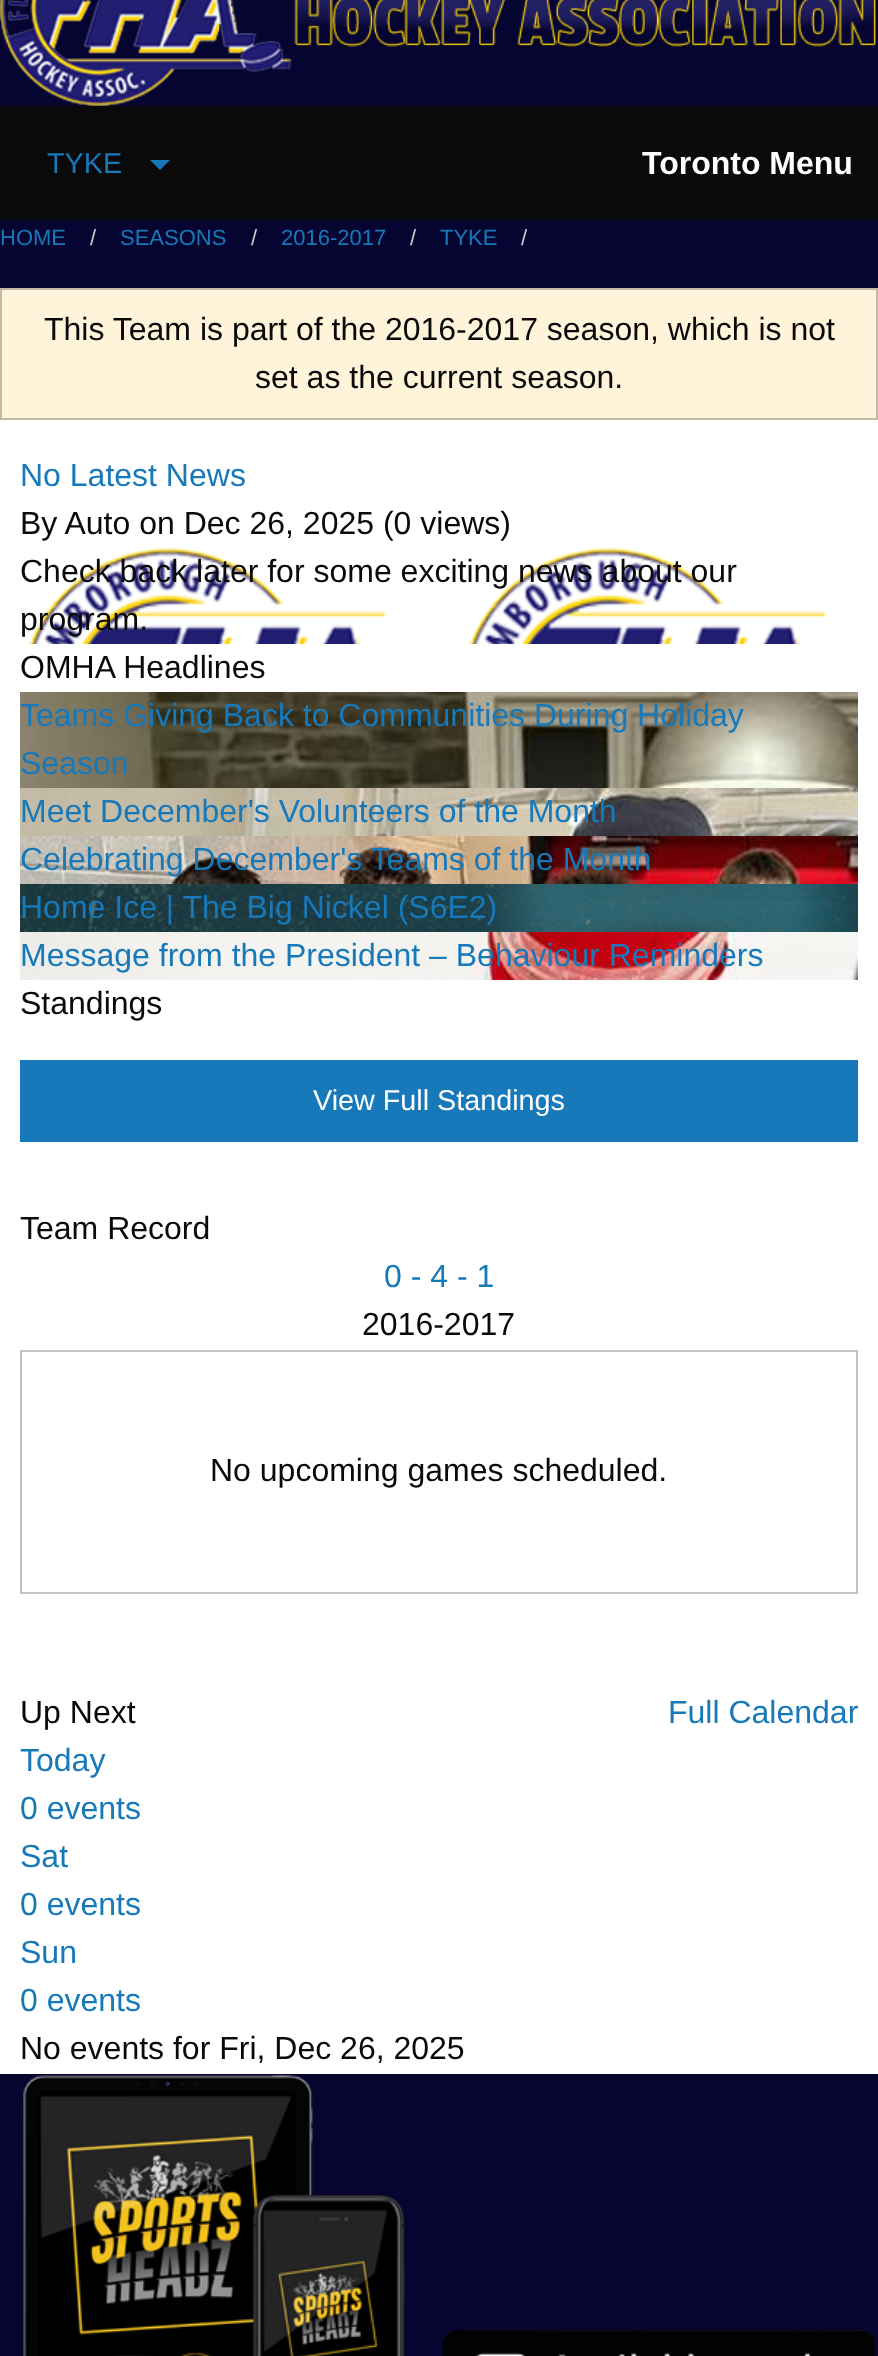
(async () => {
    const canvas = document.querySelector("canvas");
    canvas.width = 878;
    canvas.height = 2356;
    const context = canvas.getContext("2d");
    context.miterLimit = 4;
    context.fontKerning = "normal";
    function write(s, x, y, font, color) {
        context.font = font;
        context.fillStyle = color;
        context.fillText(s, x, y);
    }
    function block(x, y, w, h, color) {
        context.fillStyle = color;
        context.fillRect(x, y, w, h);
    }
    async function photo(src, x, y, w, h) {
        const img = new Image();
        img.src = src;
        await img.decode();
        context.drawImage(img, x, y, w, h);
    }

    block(0, 0, 878, 2356, "rgb(6, 5, 49)");
    await photo("media/1.png", 0, 0, 292, 106);
    await photo("media/2.png", 294, 0, 582, 50);
    block(0, 106, 878, 114, "rgb(10, 10, 10)");
    write("TYKE", 47, 173, "28.75px Liberation Sans", "rgb(23, 121, 186)");
    context.beginPath();
    context.moveTo(150, 160);
    context.lineTo(170, 160);
    context.lineTo(160, 170);
    context.closePath();
    context.fill();
    write("Toronto Menu", 642, 174, "bold 32px Liberation Sans", "rgb(254, 254, 254)");
    write("HOME", 0, 245, "22px Liberation Sans", "rgb(23, 121, 186)");
    write("/", 90, 245, "22px Liberation Sans", "rgb(202, 202, 202)");
    write("SEASONS", 120, 245, "22px Liberation Sans", "rgb(23, 121, 186)");
    write("/", 251, 245, "22px Liberation Sans", "rgb(202, 202, 202)");
    write("2016-2017", 281, 245, "22px Liberation Sans", "rgb(23, 121, 186)");
    write("/", 410, 245, "22px Liberation Sans", "rgb(202, 202, 202)");
    write("TYKE", 440, 245, "22px Liberation Sans", "rgb(23, 121, 186)");
    write("/", 521, 245, "22px Liberation Sans", "rgb(202, 202, 202)");
    block(0, 420, 878, 1654, "rgb(255, 255, 255)");
    context.fillStyle = "rgb(255, 243, 217)";
    context.beginPath();
    context.rect(1, 289, 876, 130);
    context.fill();
    context.strokeStyle = "rgb(194, 185, 165)";
    context.lineWidth = 2;
    context.stroke();
    write("This Team is part of the 2016-2017 season, which is not", 44, 340, "32px Liberation Sans", "rgb(10, 10, 10)");
    write("set as the current season.", 255, 388, "32px Liberation Sans", "rgb(10, 10, 10)");
    write("No Latest News", 20, 486, "32px Liberation Sans", "rgb(23, 121, 186)");
    write("By Auto on Dec 26, 2025 (0 views)", 20, 534, "32px Liberation Sans", "rgb(10, 10, 10)");
    await photo("media/3.png", 28, 548, 799, 96);
    write("Check back later for some exciting news about our", 20, 582, "32px Liberation Sans", "rgb(10, 10, 10)");
    write("program.", 20, 630, "32px Liberation Sans", "rgb(10, 10, 10)");
    write("OMHA Headlines", 20, 678, "32px Liberation Sans", "rgb(10, 10, 10)");
    await photo("media/4.png", 20, 692, 838, 96);
    write("Teams Giving Back to Communities During Holiday", 20, 726, "32px Liberation Sans", "rgb(23, 121, 186)");
    write("Season", 20, 774, "32px Liberation Sans", "rgb(23, 121, 186)");
    await photo("media/5.png", 20, 788, 838, 48);
    write("Meet December's Volunteers of the Month", 20, 822, "32px Liberation Sans", "rgb(23, 121, 186)");
    await photo("media/6.png", 20, 836, 838, 48);
    write("Celebrating December's Teams of the Month", 20, 870, "32px Liberation Sans", "rgb(23, 121, 186)");
    await photo("media/7.png", 20, 884, 838, 48);
    write("Home Ice | The Big Nickel (S6E2)", 20, 918, "32px Liberation Sans", "rgb(23, 121, 186)");
    await photo("media/8.png", 20, 932, 838, 48);
    write("Message from the President – Behaviour Reminders", 20, 966, "32px Liberation Sans", "rgb(23, 121, 186)");
    write("Standings", 20, 1014, "32px Liberation Sans", "rgb(10, 10, 10)");
    block(20, 1060, 838, 82, "rgb(23, 121, 186)");
    write("View Full Standings", 313, 1110, "28.75px Liberation Sans", "rgb(254, 254, 254)");
    write("Team Record", 20, 1239, "32px Liberation Sans", "rgb(10, 10, 10)");
    write("0 - 4 - 1", 384, 1287, "32px Liberation Sans", "rgb(23, 121, 186)");
    write("2016-2017", 362, 1335, "32px Liberation Sans", "rgb(10, 10, 10)");
    context.strokeStyle = "rgb(194, 194, 194)";
    context.strokeRect(21, 1351, 836, 242);
    write("No upcoming games scheduled.", 210, 1481, "32px Liberation Sans", "rgb(10, 10, 10)");
    write("Up Next", 20, 1723, "32px Liberation Sans", "rgb(10, 10, 10)");
    write("Full Calendar", 668, 1723, "32px Liberation Sans", "rgb(23, 121, 186)");
    write("Today", 20, 1771, "32px Liberation Sans", "rgb(23, 121, 186)");
    write("0 events", 20, 1819, "32px Liberation Sans", "rgb(23, 121, 186)");
    write("Sat", 20, 1867, "32px Liberation Sans", "rgb(23, 121, 186)");
    write("0 events", 20, 1915, "32px Liberation Sans", "rgb(23, 121, 186)");
    write("Sun", 20, 1963, "32px Liberation Sans", "rgb(23, 121, 186)");
    write("0 events", 20, 2011, "32px Liberation Sans", "rgb(23, 121, 186)");
    write("No events for Fri, Dec 26, 2025", 20, 2059, "32px Liberation Sans", "rgb(10, 10, 10)");
    await photo("media/9.png", 23, 2074, 383, 282);
    await photo("media/10.png", 441, 2329, 436, 27);
})();
